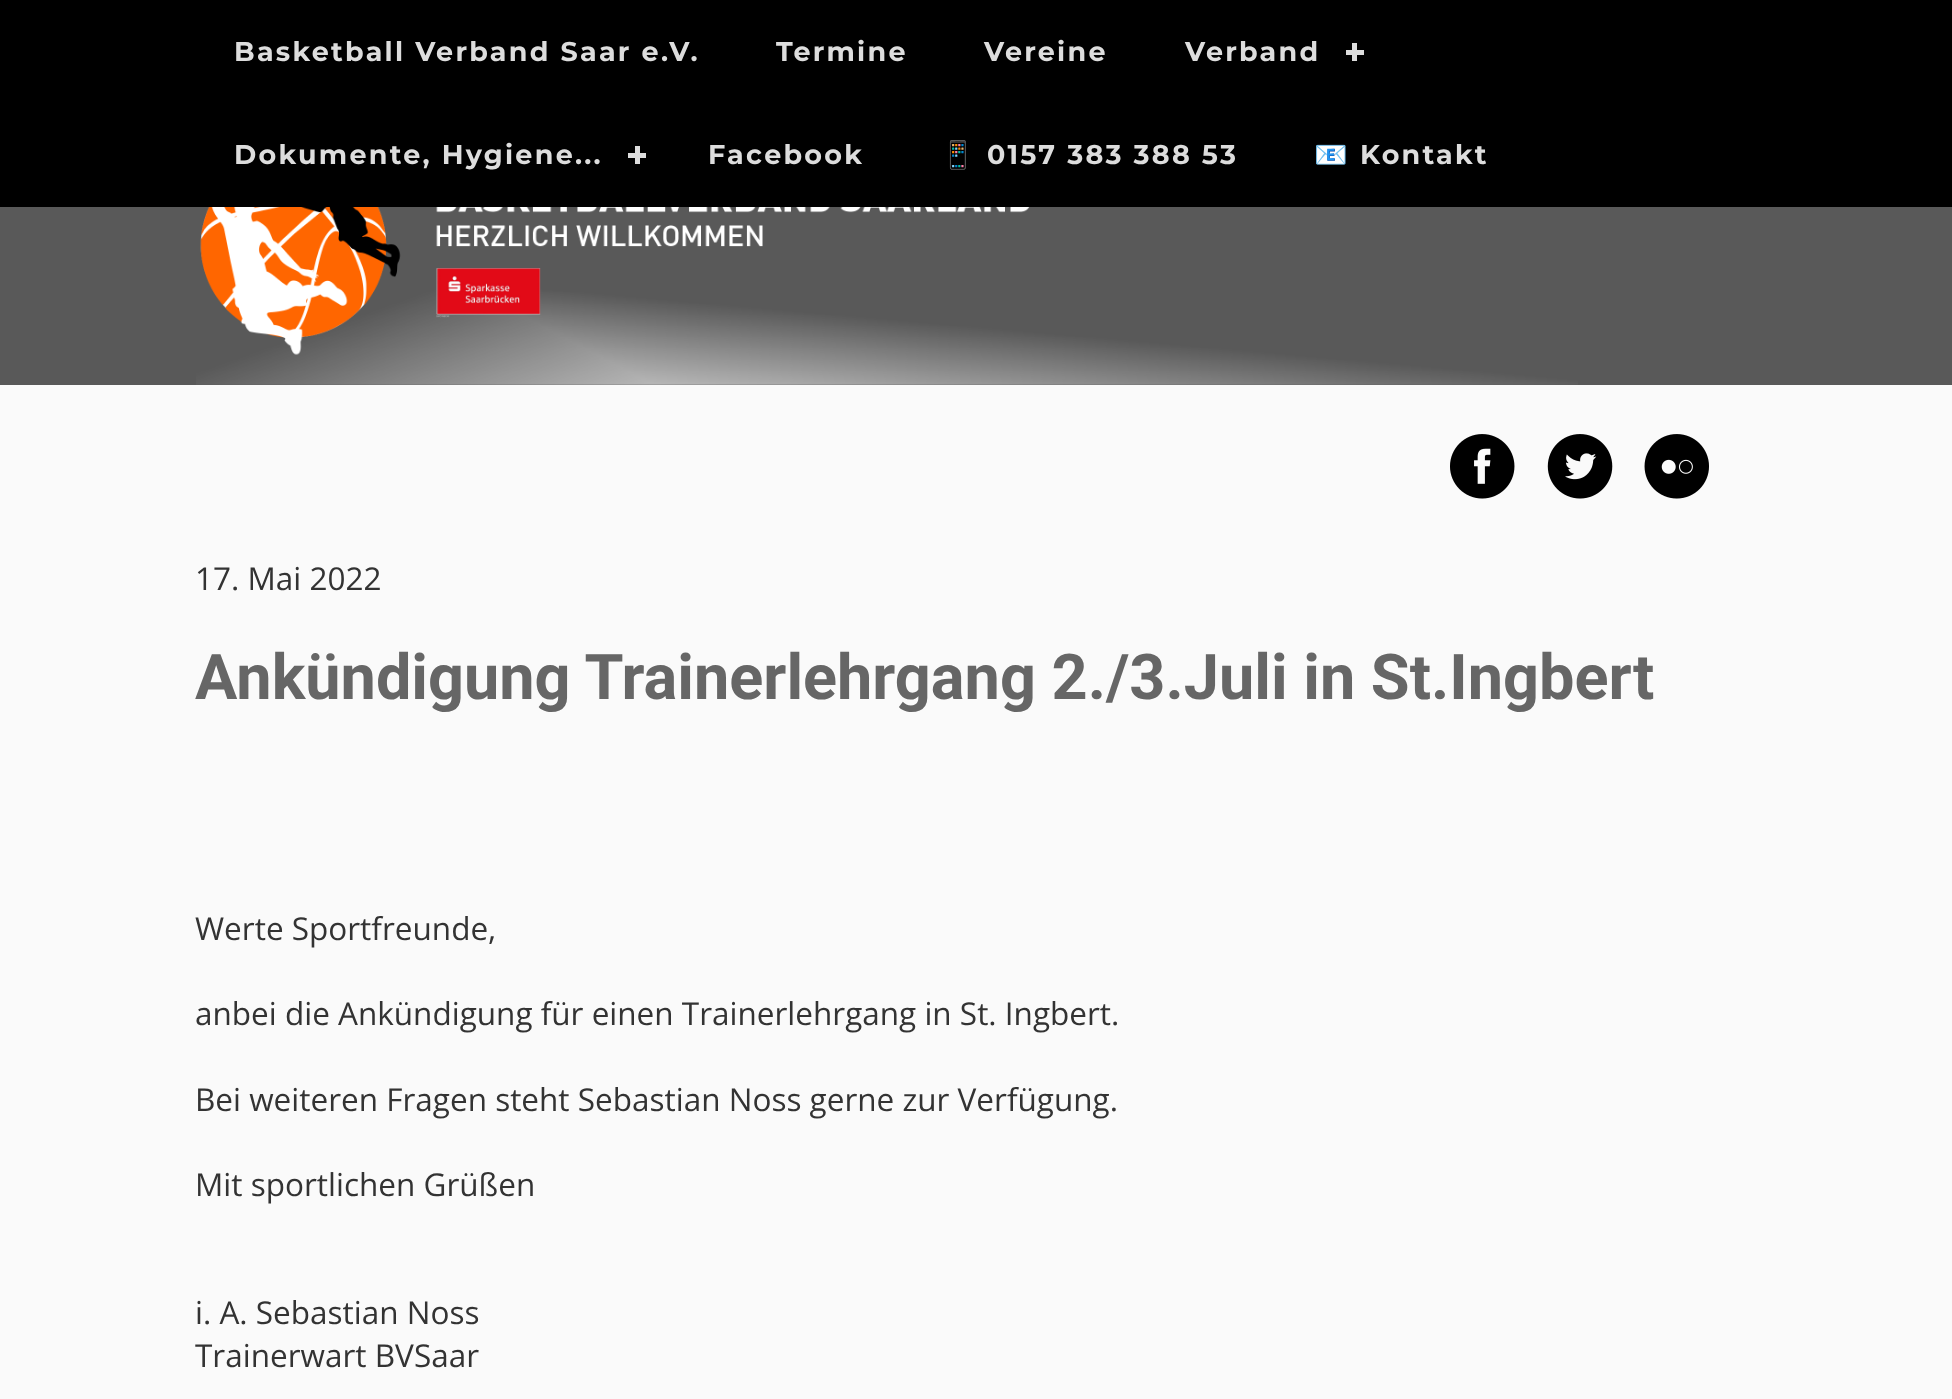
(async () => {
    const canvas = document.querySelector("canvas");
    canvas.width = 1952;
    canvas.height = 1399;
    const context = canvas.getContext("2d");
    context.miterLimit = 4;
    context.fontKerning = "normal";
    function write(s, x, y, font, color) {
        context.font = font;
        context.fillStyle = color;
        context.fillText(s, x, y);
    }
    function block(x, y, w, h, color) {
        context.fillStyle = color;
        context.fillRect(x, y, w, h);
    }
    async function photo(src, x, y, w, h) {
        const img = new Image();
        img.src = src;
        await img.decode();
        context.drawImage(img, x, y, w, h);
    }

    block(0, 0, 1952, 1399, "rgb(250, 250, 250)");
    block(0, 0, 1952, 207, "rgb(0, 0, 0)");
    context.letterSpacing = "2.25px";
    write("Basketball Verband Saar e.V.", 234, 61, "bold 27px Montserrat", "rgb(221, 221, 221)");
    write("Termine", 776, 61, "bold 27px Montserrat", "rgb(221, 221, 221)");
    write("Vereine", 984, 61, "bold 27px Montserrat", "rgb(221, 221, 221)");
    write("Verband", 1185, 61, "bold 27px Montserrat", "rgb(221, 221, 221)");
    block(1352, 43, 5, 18, "rgb(221, 221, 221)");
    block(1346, 50, 18, 5, "rgb(221, 221, 221)");
    write("Dokumente, Hygiene...", 234, 164, "bold 27px Montserrat", "rgb(221, 221, 221)");
    block(635, 146, 5, 18, "rgb(221, 221, 221)");
    block(628, 153, 18, 5, "rgb(221, 221, 221)");
    write("Facebook", 708, 164, "bold 27px Montserrat", "rgb(221, 221, 221)");
    write("📱", 941, 164, "bold 27px Noto Color Emoji", "rgb(221, 221, 221)");
    write("0157 383 388 53", 987, 164, "bold 27px Montserrat", "rgb(221, 221, 221)");
    write("📧", 1314, 164, "bold 27px Noto Color Emoji", "rgb(221, 221, 221)");
    write("Kontakt", 1360, 164, "bold 27px Montserrat", "rgb(221, 221, 221)");
    block(0, 207, 1952, 178, "rgb(89, 89, 89)");
    await photo("media/1.png", 196, 207, 1382, 178);
    await photo("media/2.png", 1450, 434, 65, 65);
    await photo("media/3.png", 1547, 434, 66, 65);
    await photo("media/4.png", 1644, 434, 65, 65);
    context.letterSpacing = "0px";
    write("17. Mai 2022", 195, 590, "31.5px Open Sans", "rgb(51, 51, 51)");
    write("Ankündigung Trainerlehrgang 2./3.Juli in St.Ingbert", 195, 699, "bold 63px Roboto", "rgb(102, 102, 102)");
    write("Werte Sportfreunde,", 195, 940, "31.5px Open Sans", "rgb(51, 51, 51)");
    write("anbei die Ankündigung für einen Trainerlehrgang in St. Ingbert.", 195, 1025, "31.5px Open Sans", "rgb(51, 51, 51)");
    write("Bei weiteren Fragen steht Sebastian Noss gerne zur Verfügung.", 195, 1111, "31.5px Open Sans", "rgb(51, 51, 51)");
    write("Mit sportlichen Grüßen", 195, 1196, "31.5px Open Sans", "rgb(51, 51, 51)");
    write("i. A. Sebastian Noss", 195, 1324, "31.5px Open Sans", "rgb(51, 51, 51)");
    write("Trainerwart BVSaar", 195, 1367, "31.5px Open Sans", "rgb(51, 51, 51)");
})();
